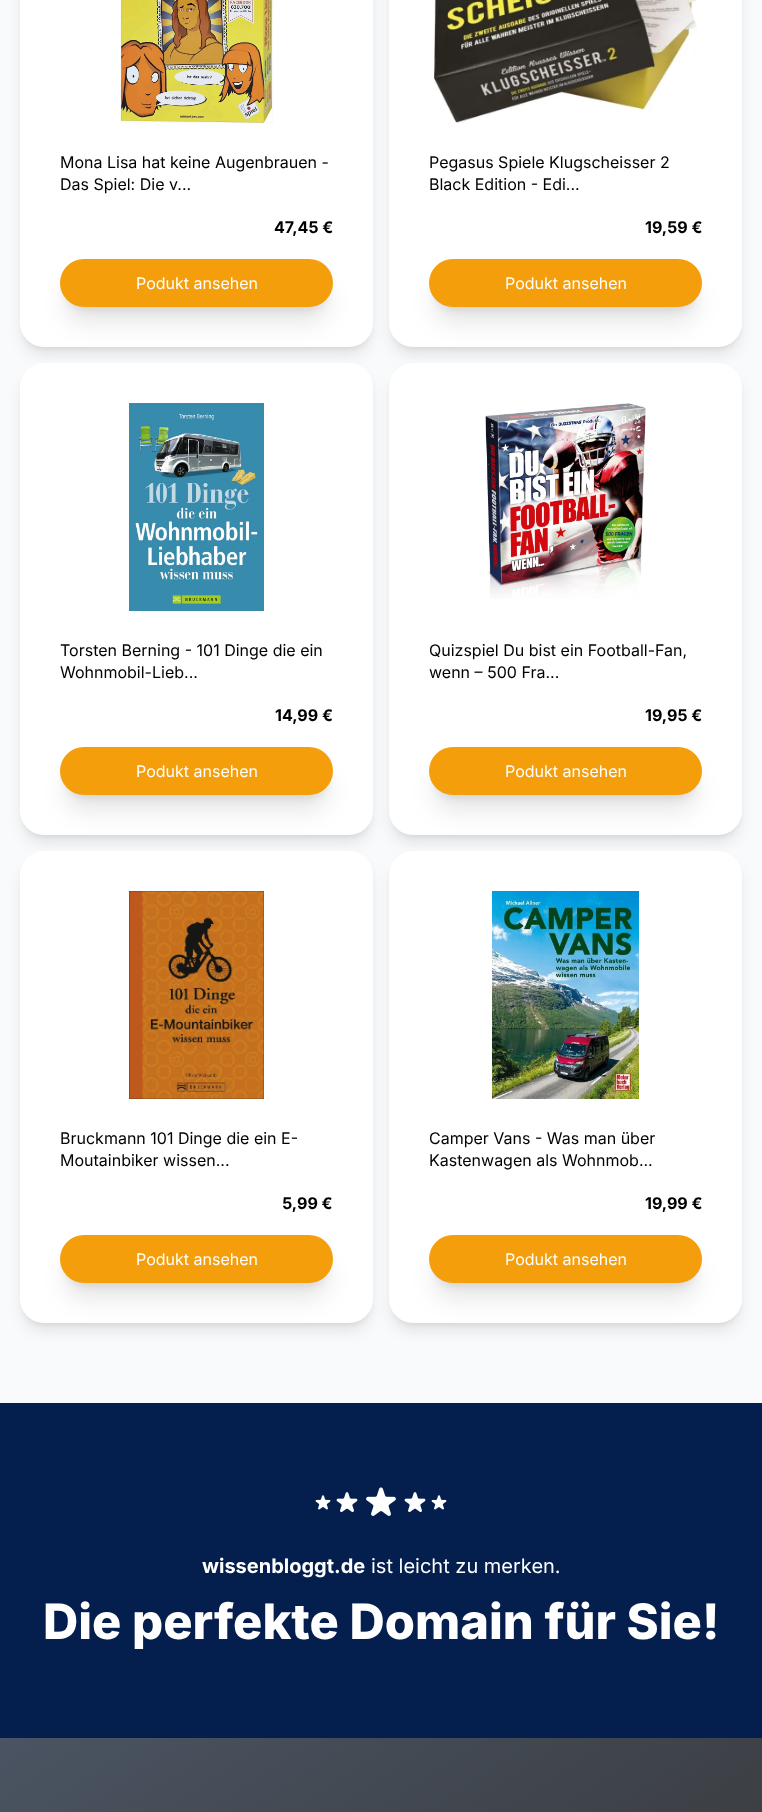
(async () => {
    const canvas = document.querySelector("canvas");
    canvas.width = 762;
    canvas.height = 1812;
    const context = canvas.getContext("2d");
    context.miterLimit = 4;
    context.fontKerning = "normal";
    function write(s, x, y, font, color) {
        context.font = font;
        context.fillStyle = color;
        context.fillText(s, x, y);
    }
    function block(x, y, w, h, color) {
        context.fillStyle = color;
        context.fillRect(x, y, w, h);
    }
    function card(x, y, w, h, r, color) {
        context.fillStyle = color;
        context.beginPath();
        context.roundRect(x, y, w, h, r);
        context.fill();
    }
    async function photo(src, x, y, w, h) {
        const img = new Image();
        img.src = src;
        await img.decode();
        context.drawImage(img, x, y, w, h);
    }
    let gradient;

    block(0, 0, 762, 1812, "rgb(249, 250, 251)");
    context.fillStyle = "rgba(0, 0, 0, 0.1)";
    context.filter = "blur(3px)";
    context.beginPath();
    context.roundRect(24, -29, 345, 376, 20);
    context.fill();
    context.filter = "none";
    context.filter = "blur(7.5px)";
    context.beginPath();
    context.roundRect(23, -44, 347, 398, 21);
    context.fill();
    context.filter = "none";
    card(20, -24, 353, 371, 24, "rgb(255, 255, 255)");
    await photo("media/1.png", 120, 0, 154, 123);
    write("Mona Lisa hat keine Augenbrauen -", 60, 168, "16px Inter", "rgb(0, 0, 0)");
    write("Das Spiel: Die v...", 60, 190, "16px Inter", "rgb(0, 0, 0)");
    write("47,45 €", 274, 233, "bold 16px Inter", "rgb(0, 0, 0)");
    context.fillStyle = "rgba(0, 0, 0, 0.1)";
    context.filter = "blur(5px)";
    context.beginPath();
    context.roundRect(66, 273, 261, 36, 18);
    context.fill();
    context.filter = "none";
    context.filter = "blur(12.5px)";
    context.beginPath();
    context.roundRect(65, 284, 263, 38, 19);
    context.fill();
    context.filter = "none";
    card(60, 259, 273, 48, 24, "rgb(245, 158, 11)");
    write("Podukt ansehen", 136, 289, "16px Inter", "rgb(255, 255, 255)");
    context.fillStyle = "rgba(0, 0, 0, 0.1)";
    context.filter = "blur(3px)";
    context.beginPath();
    context.roundRect(393, -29, 345, 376, 20);
    context.fill();
    context.filter = "none";
    context.filter = "blur(7.5px)";
    context.beginPath();
    context.roundRect(392, -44, 347, 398, 21);
    context.fill();
    context.filter = "none";
    card(389, -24, 353, 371, 24, "rgb(255, 255, 255)");
    await photo("media/2.png", 434, 0, 263, 123);
    write("Pegasus Spiele Klugscheisser 2", 429, 168, "16px Inter", "rgb(0, 0, 0)");
    write("Black Edition - Edi...", 429, 190, "16px Inter", "rgb(0, 0, 0)");
    write("19,59 €", 645, 233, "bold 16px Inter", "rgb(0, 0, 0)");
    context.fillStyle = "rgba(0, 0, 0, 0.1)";
    context.filter = "blur(5px)";
    context.beginPath();
    context.roundRect(435, 273, 261, 36, 18);
    context.fill();
    context.filter = "none";
    context.filter = "blur(12.5px)";
    context.beginPath();
    context.roundRect(434, 284, 263, 38, 19);
    context.fill();
    context.filter = "none";
    card(429, 259, 273, 48, 24, "rgb(245, 158, 11)");
    write("Podukt ansehen", 505, 289, "16px Inter", "rgb(255, 255, 255)");
    context.fillStyle = "rgba(0, 0, 0, 0.1)";
    context.filter = "blur(3px)";
    context.beginPath();
    context.roundRect(24, 371, 345, 464, 20);
    context.fill();
    context.filter = "none";
    context.filter = "blur(7.5px)";
    context.beginPath();
    context.roundRect(23, 376, 347, 466, 21);
    context.fill();
    context.filter = "none";
    card(20, 363, 353, 472, 24, "rgb(255, 255, 255)");
    await photo("media/3.png", 129, 403, 135, 208);
    write("Torsten Berning - 101 Dinge die ein", 60, 656, "16px Inter", "rgb(0, 0, 0)");
    write("Wohnmobil-Lieb...", 60, 678, "16px Inter", "rgb(0, 0, 0)");
    write("14,99 €", 275, 721, "bold 16px Inter", "rgb(0, 0, 0)");
    context.fillStyle = "rgba(0, 0, 0, 0.1)";
    context.filter = "blur(5px)";
    context.beginPath();
    context.roundRect(66, 761, 261, 36, 18);
    context.fill();
    context.filter = "none";
    context.filter = "blur(12.5px)";
    context.beginPath();
    context.roundRect(65, 772, 263, 38, 19);
    context.fill();
    context.filter = "none";
    card(60, 747, 273, 48, 24, "rgb(245, 158, 11)");
    write("Podukt ansehen", 136, 777, "16px Inter", "rgb(255, 255, 255)");
    context.fillStyle = "rgba(0, 0, 0, 0.1)";
    context.filter = "blur(3px)";
    context.beginPath();
    context.roundRect(393, 371, 345, 464, 20);
    context.fill();
    context.filter = "none";
    context.filter = "blur(7.5px)";
    context.beginPath();
    context.roundRect(392, 376, 347, 466, 21);
    context.fill();
    context.filter = "none";
    card(389, 363, 353, 472, 24, "rgb(255, 255, 255)");
    await photo("media/4.png", 485, 403, 161, 196);
    write("Quizspiel Du bist ein Football-Fan,", 429, 656, "16px Inter", "rgb(0, 0, 0)");
    write("wenn – 500 Fra...", 429, 678, "16px Inter", "rgb(0, 0, 0)");
    write("19,95 €", 645, 721, "bold 16px Inter", "rgb(0, 0, 0)");
    context.fillStyle = "rgba(0, 0, 0, 0.1)";
    context.filter = "blur(5px)";
    context.beginPath();
    context.roundRect(435, 761, 261, 36, 18);
    context.fill();
    context.filter = "none";
    context.filter = "blur(12.5px)";
    context.beginPath();
    context.roundRect(434, 772, 263, 38, 19);
    context.fill();
    context.filter = "none";
    card(429, 747, 273, 48, 24, "rgb(245, 158, 11)");
    write("Podukt ansehen", 505, 777, "16px Inter", "rgb(255, 255, 255)");
    context.fillStyle = "rgba(0, 0, 0, 0.1)";
    context.filter = "blur(3px)";
    context.beginPath();
    context.roundRect(24, 859, 345, 464, 20);
    context.fill();
    context.filter = "none";
    context.filter = "blur(7.5px)";
    context.beginPath();
    context.roundRect(23, 864, 347, 466, 21);
    context.fill();
    context.filter = "none";
    card(20, 851, 353, 472, 24, "rgb(255, 255, 255)");
    await photo("media/5.png", 129, 891, 135, 208);
    write("Bruckmann 101 Dinge die ein E-", 60, 1144, "16px Inter", "rgb(0, 0, 0)");
    write("Moutainbiker wissen...", 60, 1166, "16px Inter", "rgb(0, 0, 0)");
    write("5,99 €", 282, 1209, "bold 16px Inter", "rgb(0, 0, 0)");
    context.fillStyle = "rgba(0, 0, 0, 0.1)";
    context.filter = "blur(5px)";
    context.beginPath();
    context.roundRect(66, 1249, 261, 36, 18);
    context.fill();
    context.filter = "none";
    context.filter = "blur(12.5px)";
    context.beginPath();
    context.roundRect(65, 1260, 263, 38, 19);
    context.fill();
    context.filter = "none";
    card(60, 1235, 273, 48, 24, "rgb(245, 158, 11)");
    write("Podukt ansehen", 136, 1265, "16px Inter", "rgb(255, 255, 255)");
    context.fillStyle = "rgba(0, 0, 0, 0.1)";
    context.filter = "blur(3px)";
    context.beginPath();
    context.roundRect(393, 859, 345, 464, 20);
    context.fill();
    context.filter = "none";
    context.filter = "blur(7.5px)";
    context.beginPath();
    context.roundRect(392, 864, 347, 466, 21);
    context.fill();
    context.filter = "none";
    card(389, 851, 353, 472, 24, "rgb(255, 255, 255)");
    await photo("media/6.png", 492, 891, 147, 208);
    write("Camper Vans - Was man über", 429, 1144, "16px Inter", "rgb(0, 0, 0)");
    write("Kastenwagen als Wohnmob...", 429, 1166, "16px Inter", "rgb(0, 0, 0)");
    write("19,99 €", 645, 1209, "bold 16px Inter", "rgb(0, 0, 0)");
    context.fillStyle = "rgba(0, 0, 0, 0.1)";
    context.filter = "blur(5px)";
    context.beginPath();
    context.roundRect(435, 1249, 261, 36, 18);
    context.fill();
    context.filter = "none";
    context.filter = "blur(12.5px)";
    context.beginPath();
    context.roundRect(434, 1260, 263, 38, 19);
    context.fill();
    context.filter = "none";
    card(429, 1235, 273, 48, 24, "rgb(245, 158, 11)");
    write("Podukt ansehen", 505, 1265, "16px Inter", "rgb(255, 255, 255)");
    block(0, 1403, 762, 335, "rgb(4, 30, 77)");
    await photo("media/7.png", 315, 1495, 16, 15);
    await photo("media/8.png", 336, 1492, 22, 20);
    await photo("media/9.png", 366, 1487, 30, 29);
    await photo("media/8.png", 404, 1492, 22, 20);
    await photo("media/7.png", 431, 1495, 16, 15);
    write("wissenbloggt.de", 202, 1573, "bold 20px Inter", "rgb(255, 255, 255)");
    write("ist leicht zu merken.", 371, 1573, "20px Inter", "rgb(255, 255, 255)");
    write("Die perfekte Domain für Sie!", 43, 1639, "800 48.8px Inter", "rgb(255, 255, 255)");
    gradient = context.createLinearGradient(148, 1640, 614, 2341);
    gradient.addColorStop(0, "rgb(74, 84, 98)");
    gradient.addColorStop(1, "rgb(50, 48, 46)");
    context.fillStyle = gradient;
    context.fillRect(0, 1738, 762, 74);
})();
